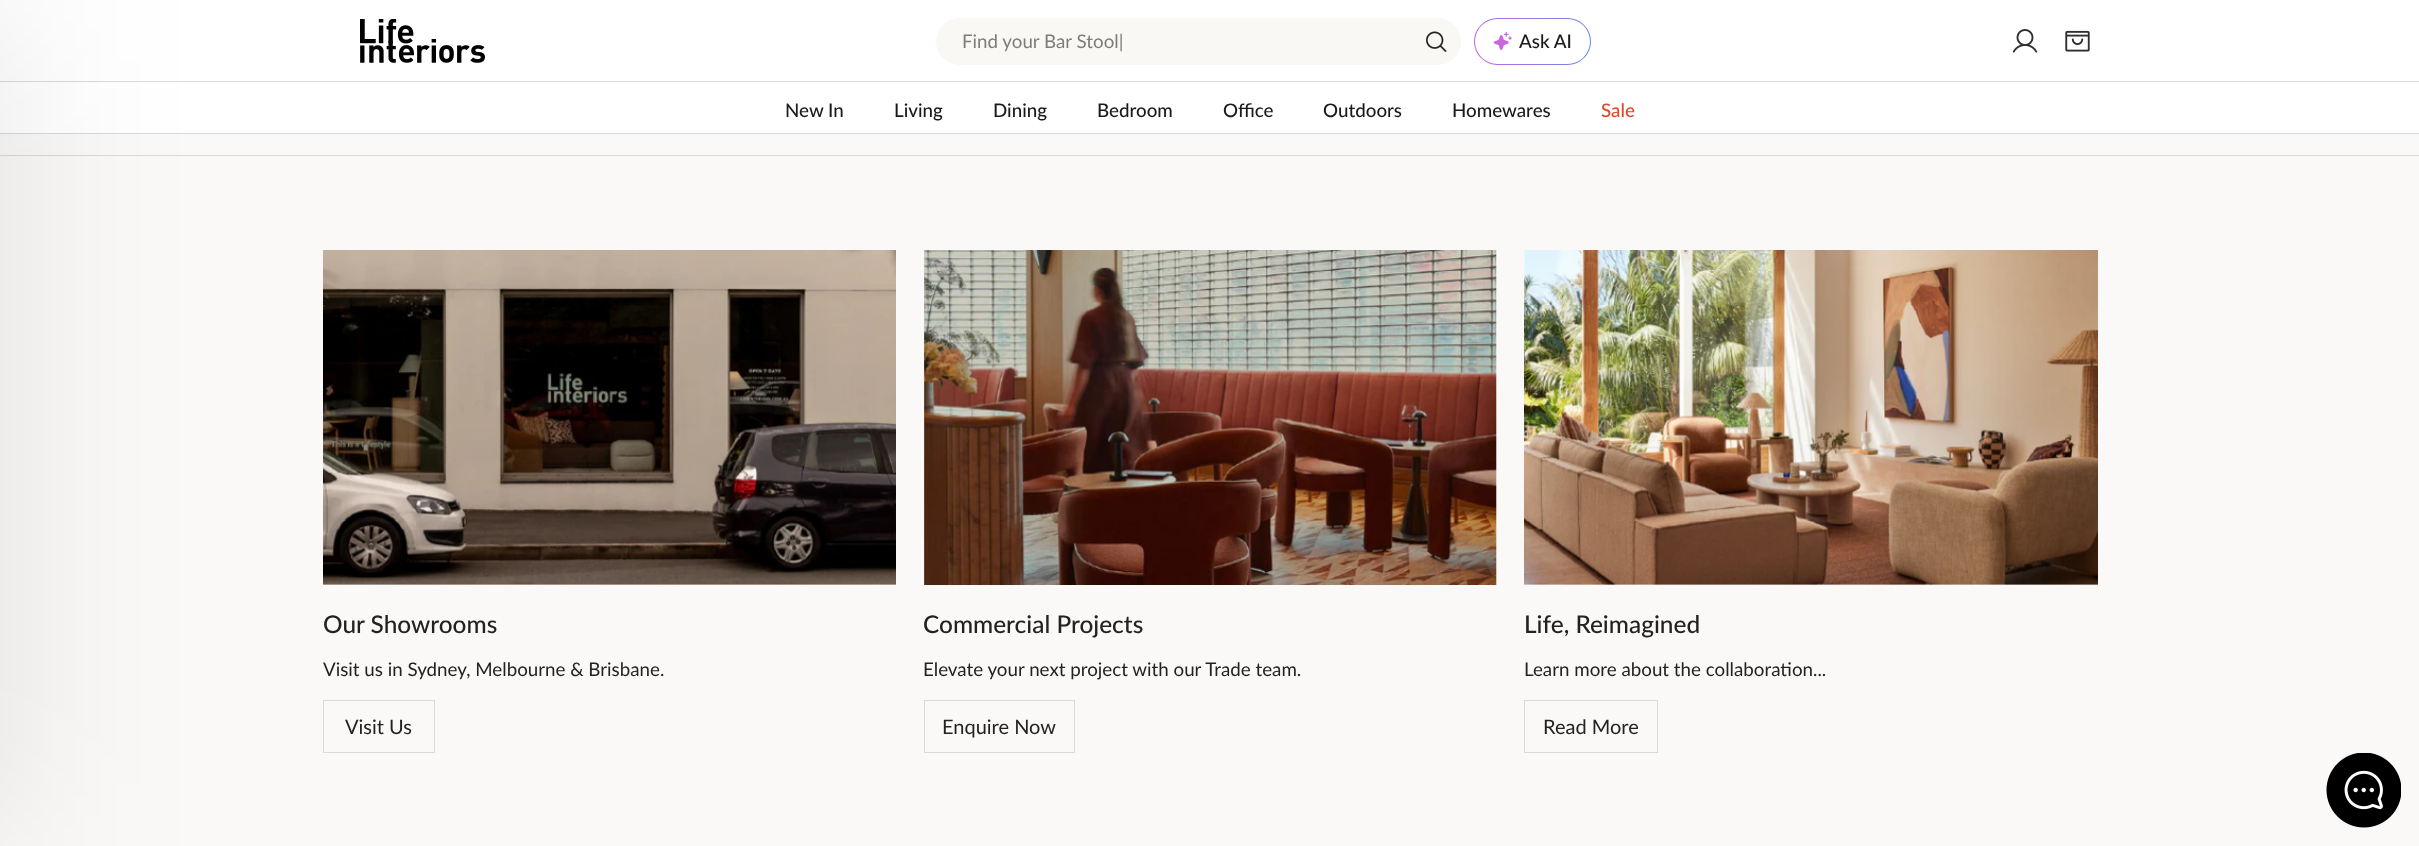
(async () => {
    const canvas = document.querySelector("canvas");
    canvas.width = 2419;
    canvas.height = 846;
    const context = canvas.getContext("2d");
    context.miterLimit = 4;
    context.fontKerning = "normal";
    function write(s, x, y, font, color) {
        context.font = font;
        context.fillStyle = color;
        context.fillText(s, x, y);
    }
    function block(x, y, w, h, color) {
        context.fillStyle = color;
        context.fillRect(x, y, w, h);
    }
    function card(x, y, w, h, r, color) {
        context.fillStyle = color;
        context.beginPath();
        context.roundRect(x, y, w, h, r);
        context.fill();
    }
    async function photo(src, x, y, w, h) {
        const img = new Image();
        img.src = src;
        await img.decode();
        context.drawImage(img, x, y, w, h);
    }
    let gradient;

    block(0, 0, 2419, 846, "rgb(250, 249, 247)");
    block(0, 0, 2419, 133, "rgb(255, 255, 255)");
    block(0, 81, 2419, 1, "rgb(218, 218, 218)");
    block(0, 133, 2419, 1, "rgb(218, 218, 218)");
    block(0, 155, 2419, 1, "rgb(219, 218, 216)");
    context.fillStyle = "rgba(0, 0, 0, 0.1)";
    context.filter = "blur(94px)";
    context.beginPath();
    context.rect(-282, 0, 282, 846);
    context.fill();
    context.filter = "none";
    await photo("media/1.png", 360, 19, 125, 44);
    card(936, 18, 525, 47, 23.5, "rgb(249, 248, 245)");
    write("Find your Bar Stool|", 962, 48, "18.75px Lato", "rgb(125, 124, 123)");
    await photo("media/2.png", 1426, 31, 21, 21);
    gradient = context.createLinearGradient(1474, 41, 1591, 41);
    gradient.addColorStop(0, "rgb(200, 103, 222)");
    gradient.addColorStop(1, "rgb(105, 135, 236)");
    context.fillStyle = gradient;
    context.beginPath();
    context.roundRect(1474, 18, 117, 47, 23.5);
    context.fill();
    card(1475, 19, 115, 45, 22.5, "rgb(255, 255, 255)");
    await photo("media/3.png", 1493, 31, 19, 19);
    write("Ask AI", 1519, 48, "500 18.75px Lato", "rgb(26, 26, 26)");
    await photo("media/4.png", 2012, 29, 26, 24);
    await photo("media/5.png", 2065, 30, 25, 22);
    write("New In", 785, 117, "500 18.75px Lato", "rgb(26, 26, 26)");
    write("Living", 894, 117, "500 18.75px Lato", "rgb(26, 26, 26)");
    write("Dining", 993, 117, "500 18.75px Lato", "rgb(26, 26, 26)");
    write("Bedroom", 1097, 117, "500 18.75px Lato", "rgb(26, 26, 26)");
    write("Office", 1223, 117, "500 18.75px Lato", "rgb(26, 26, 26)");
    write("Outdoors", 1323, 117, "500 18.75px Lato", "rgb(26, 26, 26)");
    write("Homewares", 1452, 117, "500 18.75px Lato", "rgb(26, 26, 26)");
    write("Sale", 1601, 117, "500 18.75px Lato", "rgb(222, 72, 44)");
    block(323, 584, 573, 1, "rgb(255, 255, 255)");
    await photo("media/6.png", 323, 250, 573, 335);
    write("Our Showrooms", 323, 633, "500 24.4px Lato", "rgb(34, 34, 34)");
    write("Visit us in Sydney, Melbourne & Brisbane.", 323, 676, "18.75px Lato", "rgb(34, 34, 34)");
    context.strokeStyle = "rgb(219, 218, 216)";
    context.strokeRect(323.5, 700.5, 111, 52);
    write("Visit Us", 345, 734, "20px Lato", "rgb(34, 34, 34)");
    await photo("media/7.png", 924, 250, 573, 335);
    write("Commercial Projects", 923, 633, "500 24.4px Lato", "rgb(34, 34, 34)");
    write("Elevate your next project with our Trade team.", 923, 676, "18.75px Lato", "rgb(34, 34, 34)");
    context.strokeRect(924.5, 700.5, 150, 52);
    write("Enquire Now", 942, 734, "20px Lato", "rgb(34, 34, 34)");
    block(1524, 584, 574, 1, "rgb(255, 255, 255)");
    await photo("media/8.png", 1524, 250, 574, 335);
    write("Life, Reimagined", 1524, 633, "500 24.4px Lato", "rgb(34, 34, 34)");
    write("Learn more about the collaboration...", 1524, 676, "18.75px Lato", "rgb(34, 34, 34)");
    context.strokeRect(1524.5, 700.5, 133, 52);
    write("Read More", 1543, 734, "20px Lato", "rgb(34, 34, 34)");
    await photo("media/9.png", 2326, 753, 75, 75);
})();
